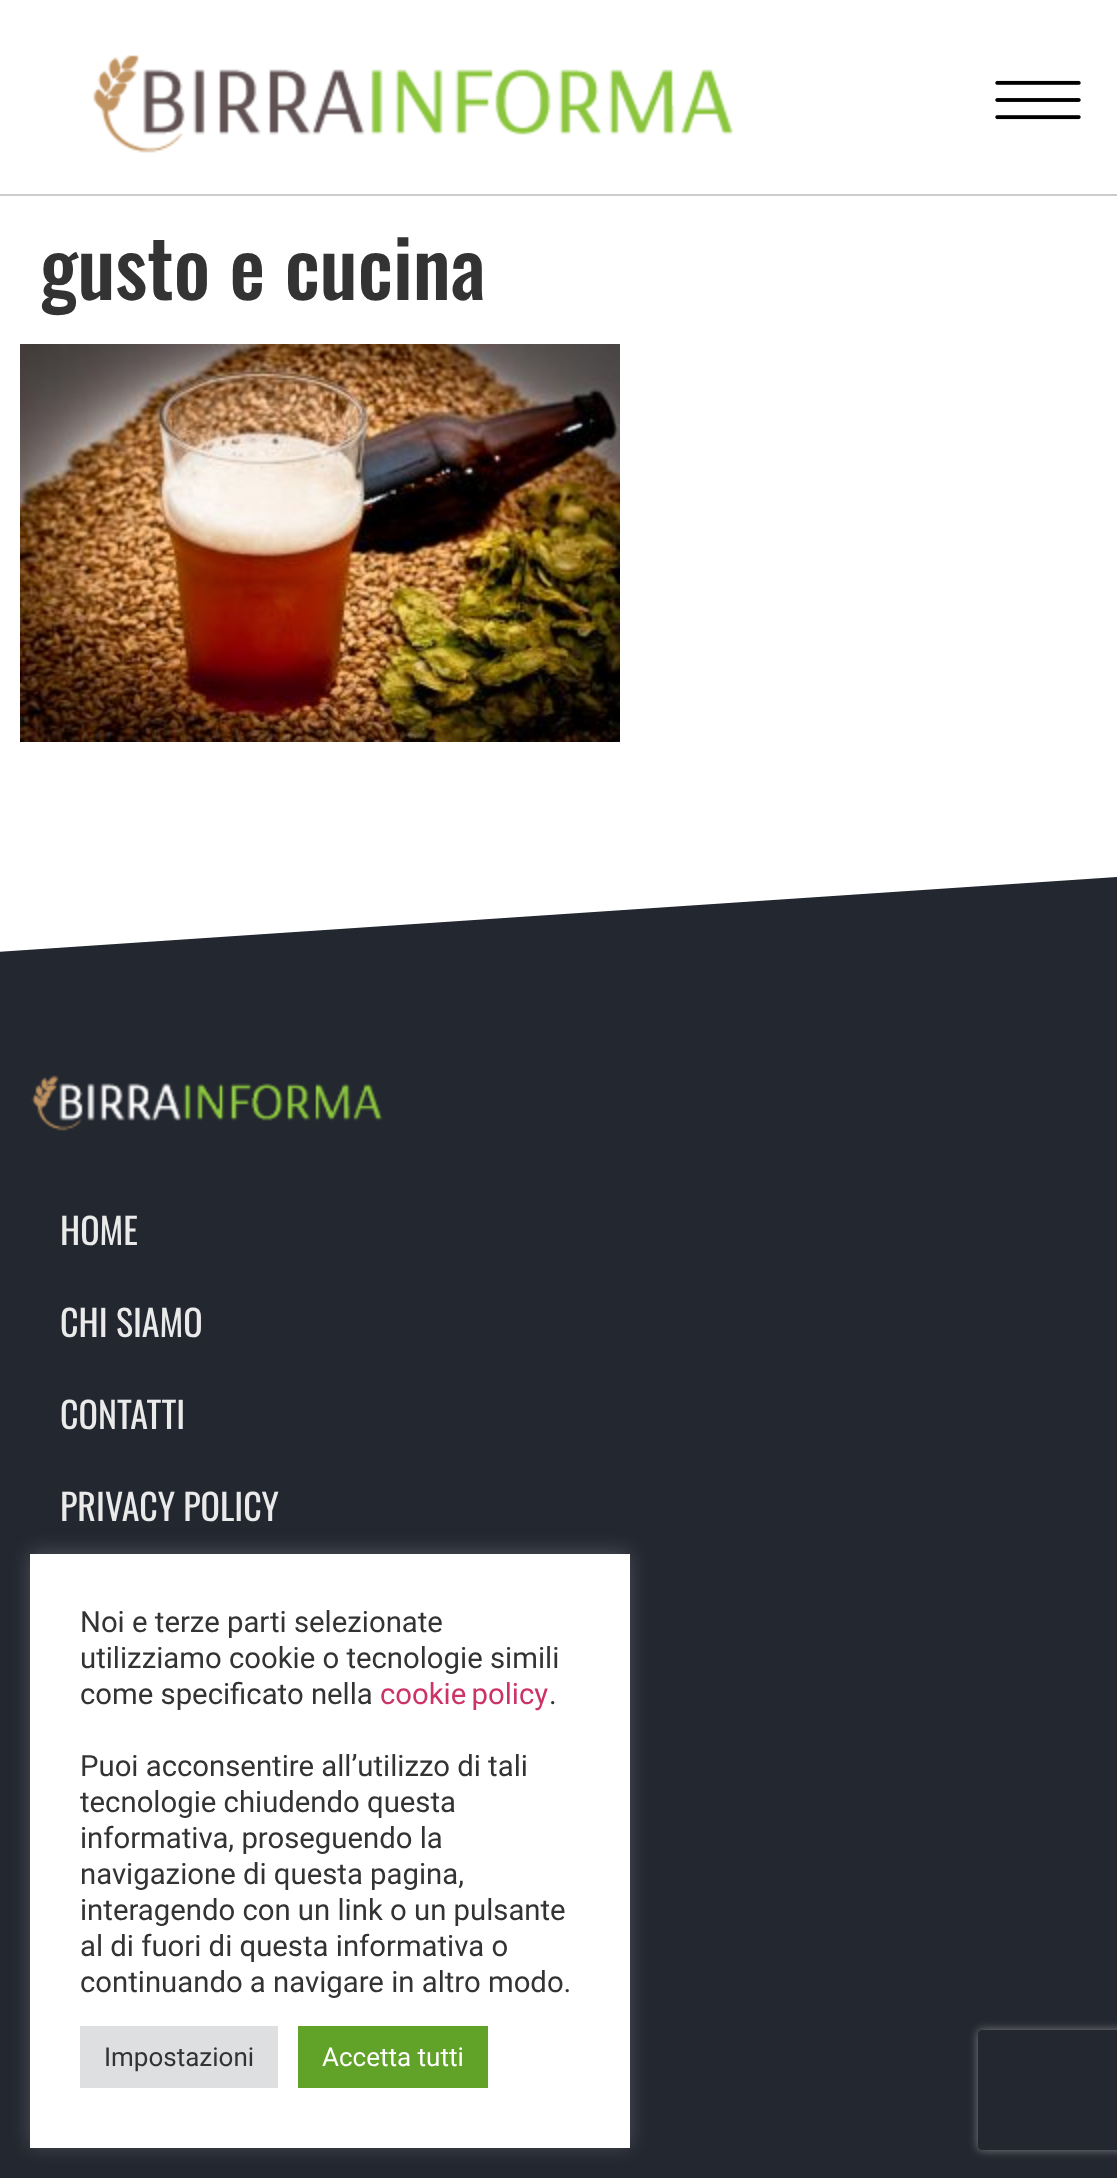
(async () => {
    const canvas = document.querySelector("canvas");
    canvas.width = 1117;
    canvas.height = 2178;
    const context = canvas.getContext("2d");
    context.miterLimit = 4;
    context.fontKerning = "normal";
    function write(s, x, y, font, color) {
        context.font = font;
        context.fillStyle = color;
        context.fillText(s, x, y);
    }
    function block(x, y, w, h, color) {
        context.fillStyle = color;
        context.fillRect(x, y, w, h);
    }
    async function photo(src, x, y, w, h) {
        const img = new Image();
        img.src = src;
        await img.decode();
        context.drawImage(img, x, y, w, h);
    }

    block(0, 0, 1117, 2178, "rgb(255, 255, 255)");
    block(0, 194, 1117, 2, "rgb(204, 204, 204)");
    await photo("media/1.png", 93, 55, 640, 98);
    await photo("media/2.png", 995, 80, 86, 40);
    write("gusto e cucina", 40, 300, "500 80px Oswald", "rgb(51, 51, 51)");
    await photo("media/3.png", 20, 344, 600, 398);
    block(0, 877, 1117, 1301, "rgb(35, 39, 48)");
    context.fillStyle = "rgb(255, 255, 255)";
    context.beginPath();
    context.moveTo(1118, 877);
    context.lineTo(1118, 872);
    context.lineTo(-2, 872);
    context.lineTo(-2, 952);
    context.closePath();
    context.fill();
    await photo("media/4.png", 31, 1075, 352, 56);
    write("HOME", 60, 1245, "36px Oswald", "rgb(234, 234, 234)");
    write("CHI SIAMO", 60, 1337, "36px Oswald", "rgb(234, 234, 234)");
    write("CONTATTI", 60, 1429, "36px Oswald", "rgb(234, 234, 234)");
    write("PRIVACY POLICY", 60, 1521, "36px Oswald", "rgb(234, 234, 234)");
    context.fillStyle = "rgba(172, 171, 171, 0.3)";
    context.filter = "blur(10px)";
    context.beginPath();
    context.rect(30, 1552, 600, 594);
    context.fill();
    context.filter = "none";
    block(30, 1554, 600, 594, "rgb(255, 255, 255)");
    write("Noi e terze parti selezionate", 80, 1632, "29.3px Roboto", "rgb(51, 51, 51)");
    write("utilizziamo cookie o tecnologie simili", 80, 1668, "29.3px Roboto", "rgb(51, 51, 51)");
    write("come specificato nella", 80, 1704, "29.3px Roboto", "rgb(51, 51, 51)");
    context.wordSpacing = "-2px";
    write("cookie policy", 380, 1704, "29.3px Roboto", "rgb(204, 51, 102)");
    context.wordSpacing = "0px";
    write(".", 549, 1704, "29.3px Roboto", "rgb(51, 51, 51)");
    write("Puoi acconsentire all’utilizzo di tali", 80, 1776, "29.3px Roboto", "rgb(51, 51, 51)");
    write("tecnologie chiudendo questa", 80, 1812, "29.3px Roboto", "rgb(51, 51, 51)");
    write("informativa, proseguendo la", 80, 1848, "29.3px Roboto", "rgb(51, 51, 51)");
    write("navigazione di questa pagina,", 80, 1884, "29.3px Roboto", "rgb(51, 51, 51)");
    write("interagendo con un link o un pulsante", 80, 1920, "29.3px Roboto", "rgb(51, 51, 51)");
    write("al di fuori di questa informativa o", 80, 1956, "29.3px Roboto", "rgb(51, 51, 51)");
    write("continuando a navigare in altro modo.", 80, 1992, "29.3px Roboto", "rgb(51, 51, 51)");
    block(80, 2026, 198, 62, "rgb(222, 223, 224)");
    write("Impostazioni", 104, 2066, "26px Roboto", "rgb(51, 51, 51)");
    block(298, 2026, 190, 62, "rgb(97, 162, 41)");
    write("Accetta tutti", 322, 2066, "26px Roboto", "rgb(255, 255, 255)");
    context.save();
    context.beginPath();
    context.moveTo(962, 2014);
    context.lineTo(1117, 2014);
    context.lineTo(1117, 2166);
    context.lineTo(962, 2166);
    context.closePath();
    context.moveTo(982, 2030);
    context.lineTo(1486, 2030);
    context.bezierCurveTo(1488, 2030, 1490, 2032, 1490, 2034);
    context.lineTo(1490, 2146);
    context.bezierCurveTo(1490, 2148, 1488, 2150, 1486, 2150);
    context.lineTo(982, 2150);
    context.bezierCurveTo(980, 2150, 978, 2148, 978, 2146);
    context.lineTo(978, 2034);
    context.bezierCurveTo(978, 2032, 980, 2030, 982, 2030);
    context.closePath();
    context.clip("evenodd");
    context.fillStyle = "rgb(128, 128, 128)";
    context.filter = "blur(5px)";
    context.beginPath();
    context.roundRect(978, 2030, 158, 120, 4);
    context.fill();
    context.filter = "none";
    context.restore();
})();
